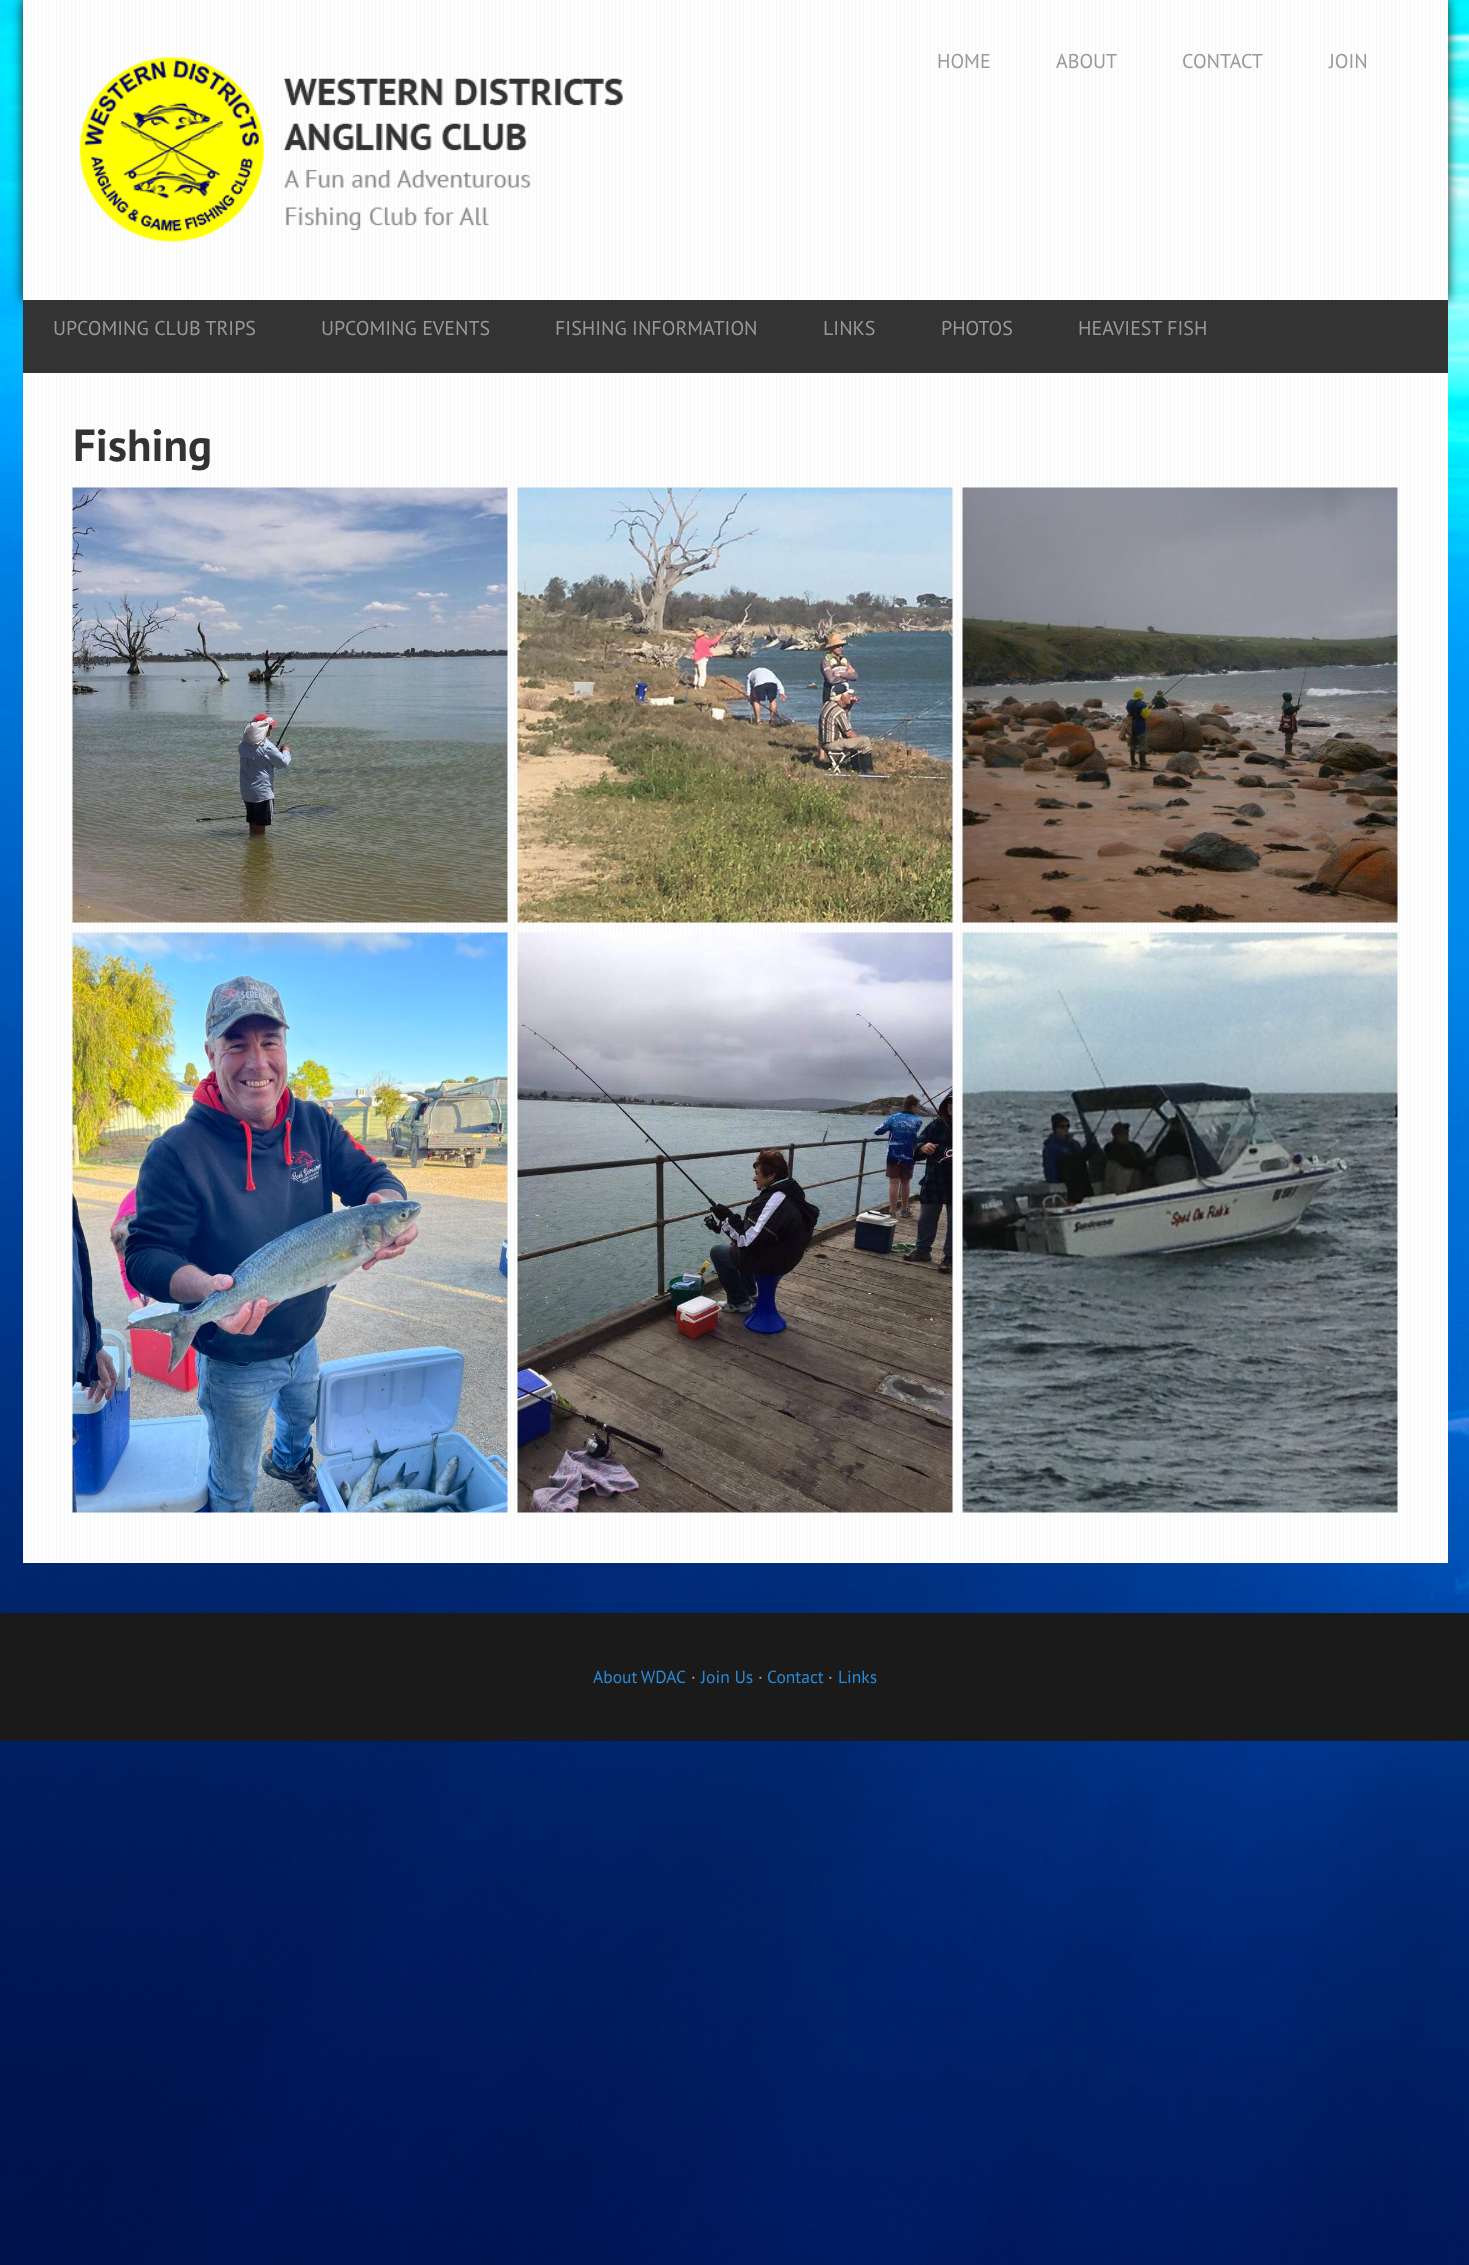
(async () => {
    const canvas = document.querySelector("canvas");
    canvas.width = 1469;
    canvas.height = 2265;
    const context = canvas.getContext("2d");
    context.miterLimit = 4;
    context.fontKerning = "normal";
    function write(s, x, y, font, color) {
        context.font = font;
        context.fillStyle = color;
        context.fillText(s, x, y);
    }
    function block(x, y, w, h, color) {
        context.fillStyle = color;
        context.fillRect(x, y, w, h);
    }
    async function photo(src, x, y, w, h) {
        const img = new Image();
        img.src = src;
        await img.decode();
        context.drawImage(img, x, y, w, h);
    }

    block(0, 0, 1469, 2265, "rgb(255, 255, 255)");
    await photo("media/1.png", 0, 0, 1469, 2265);
    context.fillStyle = "rgb(34, 34, 34)";
    context.filter = "blur(6px)";
    context.beginPath();
    context.rect(23, 0, 1425, 300);
    context.fill();
    context.filter = "none";
    block(23, 0, 1425, 300, "rgb(255, 255, 255)");
    await photo("media/2.png", 23, 0, 1422, 300);
    await photo("media/3.png", 79, 57, 544, 185);
    write("HOME", 937, 68, "20px PT Sans", "rgb(153, 153, 153)");
    write("ABOUT", 1056, 68, "20px PT Sans", "rgb(153, 153, 153)");
    write("CONTACT", 1182, 68, "20px PT Sans", "rgb(153, 153, 153)");
    write("JOIN", 1329, 68, "20px PT Sans", "rgb(153, 153, 153)");
    block(23, 300, 1425, 73, "rgb(51, 51, 51)");
    write("UPCOMING CLUB TRIPS", 53, 335, "20px PT Sans", "rgb(153, 153, 153)");
    write("UPCOMING EVENTS", 321, 335, "20px PT Sans", "rgb(153, 153, 153)");
    write("FISHING INFORMATION", 555, 335, "20px PT Sans", "rgb(153, 153, 153)");
    write("LINKS", 823, 335, "20px PT Sans", "rgb(153, 153, 153)");
    write("PHOTOS", 941, 335, "20px PT Sans", "rgb(153, 153, 153)");
    write("HEAVIEST FISH", 1078, 335, "20px PT Sans", "rgb(153, 153, 153)");
    block(23, 373, 1425, 1190, "rgb(255, 255, 255)");
    await photo("media/4.png", 23, 373, 1422, 1189);
    write("Fishing", 73, 461, "bold 45px PT Sans", "rgb(51, 51, 51)");
    await photo("media/5.png", 72, 487, 436, 436);
    await photo("media/6.png", 517, 487, 436, 436);
    await photo("media/7.png", 962, 487, 436, 436);
    await photo("media/8.png", 72, 932, 436, 581);
    await photo("media/9.png", 517, 932, 436, 581);
    await photo("media/10.png", 962, 932, 436, 581);
    block(0, 1613, 1469, 128, "rgb(26, 26, 26)");
    context.wordSpacing = "-1px";
    write("About WDAC", 593, 1683, "17.5px PT Sans", "rgb(41, 137, 216)");
    context.wordSpacing = "0px";
    write("·", 691, 1683, "17.5px PT Sans", "rgb(170, 170, 170)");
    write("Join Us", 701, 1683, "17.5px PT Sans", "rgb(41, 137, 216)");
    write("·", 758, 1683, "17.5px PT Sans", "rgb(170, 170, 170)");
    write("Contact", 767, 1683, "17.5px PT Sans", "rgb(41, 137, 216)");
    write("·", 828, 1683, "17.5px PT Sans", "rgb(170, 170, 170)");
    write("Links", 838, 1683, "17.5px PT Sans", "rgb(41, 137, 216)");
})();
